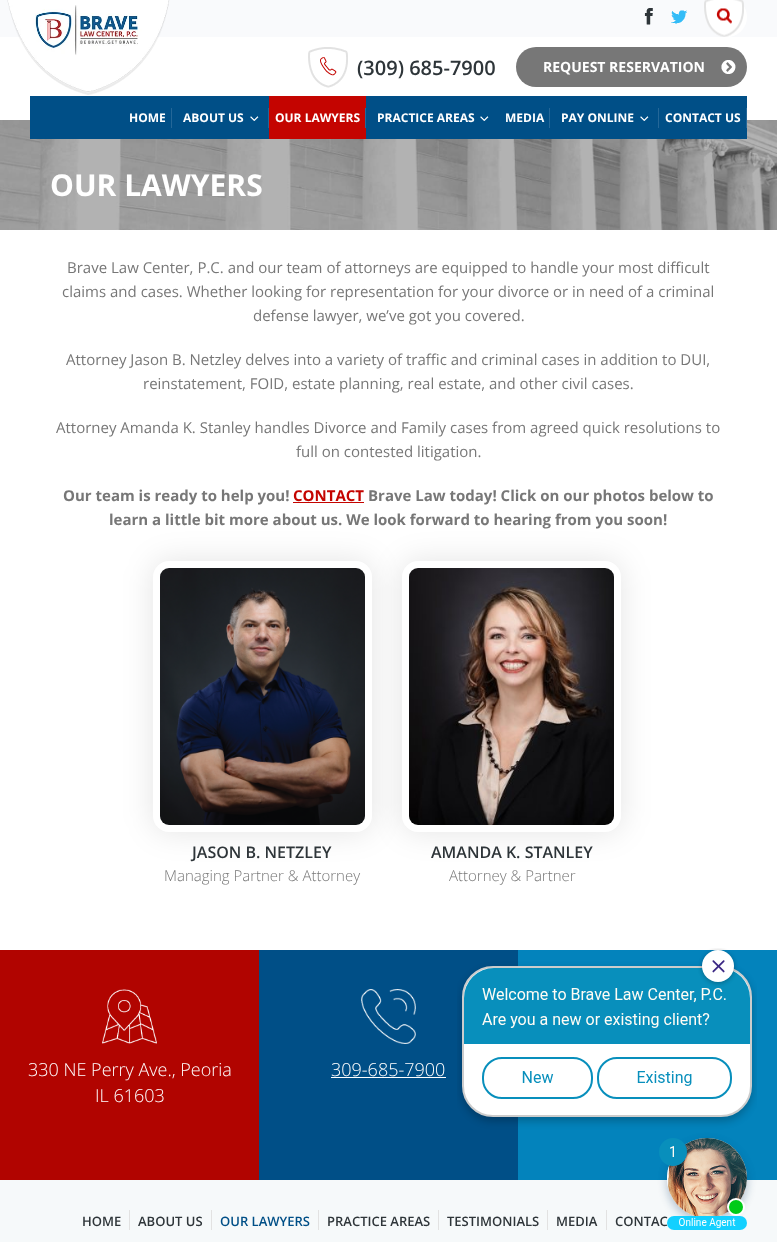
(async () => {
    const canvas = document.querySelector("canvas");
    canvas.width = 777;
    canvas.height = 1242;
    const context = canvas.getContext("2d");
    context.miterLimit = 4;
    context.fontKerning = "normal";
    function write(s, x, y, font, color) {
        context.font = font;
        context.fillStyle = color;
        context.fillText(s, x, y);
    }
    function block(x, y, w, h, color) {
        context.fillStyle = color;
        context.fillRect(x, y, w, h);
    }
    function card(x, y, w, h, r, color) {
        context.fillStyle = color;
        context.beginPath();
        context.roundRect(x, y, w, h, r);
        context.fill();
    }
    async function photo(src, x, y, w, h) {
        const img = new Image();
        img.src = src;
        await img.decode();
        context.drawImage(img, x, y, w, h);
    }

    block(0, 0, 777, 1242, "rgb(255, 255, 255)");
    block(0, 0, 777, 37, "rgb(249, 250, 252)");
    await photo("media/1.png", 7, 0, 163, 95);
    await photo("media/2.png", 644, 8, 9, 17);
    await photo("media/3.png", 671, 10, 16, 14);
    context.fillStyle = "rgb(255, 255, 255)";
    context.beginPath();
    context.arc(727, 17, 20, 0, Math.PI * 2);
    context.fill();
    await photo("media/4.png", 704, 0, 40, 37);
    await photo("media/5.png", 308, 47, 40, 41);
    write("(309) 685-7900", 357, 75, "600 20px Open Sans", "rgb(46, 53, 57)");
    card(516, 47, 231, 40, 20, "rgb(119, 119, 119)");
    await photo("media/6.png", 721, 60, 15, 14);
    write("REQUEST RESERVATION", 543, 72, "bold 14px Open Sans", "rgb(255, 255, 255)");
    await photo("media/8.png", 0, 120, 777, 110);
    block(30, 96, 717, 43, "rgb(0, 79, 135)");
    write("HOME", 129, 122, "bold 12px Open Sans", "rgb(255, 255, 255)");
    block(171, 108, 1, 20, "rgb(36, 103, 152)");
    write("ABOUT US", 183, 122, "bold 12px Open Sans", "rgb(255, 255, 255)");
    await photo("media/7.png", 250, 116, 9, 5);
    block(268, 108, 1, 20, "rgb(36, 103, 152)");
    block(269, 96, 97, 43, "rgb(196, 4, 0)");
    write("OUR LAWYERS", 275, 122, "bold 12px Open Sans", "rgb(255, 255, 255)");
    block(365, 108, 1, 20, "rgb(36, 103, 152)");
    write("PRACTICE AREAS", 377, 122, "bold 12px Open Sans", "rgb(255, 255, 255)");
    await photo("media/7.png", 480, 116, 9, 5);
    block(746, 108, 1, 20, "rgb(36, 103, 152)");
    write("MEDIA", 505, 122, "bold 12px Open Sans", "rgb(255, 255, 255)");
    block(549, 108, 1, 20, "rgb(36, 103, 152)");
    write("PAY ONLINE", 561, 122, "bold 12px Open Sans", "rgb(255, 255, 255)");
    await photo("media/7.png", 640, 116, 9, 5);
    block(658, 108, 1, 20, "rgb(36, 103, 152)");
    write("CONTACT US", 665, 122, "bold 12px Open Sans", "rgb(255, 255, 255)");
    write("OUR LAWYERS", 50, 196, "bold 30px Open Sans", "rgb(255, 255, 255)");
    write("Brave Law Center, P.C. and our team of attorneys are equipped to handle your most difficult", 67, 273, "15px Open Sans", "rgb(119, 119, 119)");
    write("claims and cases. Whether looking for representation for your divorce or in need of a criminal", 62, 297, "15px Open Sans", "rgb(119, 119, 119)");
    write("defense lawyer, we’ve got you covered.", 253, 321, "15px Open Sans", "rgb(119, 119, 119)");
    write("Attorney Jason B. Netzley delves into a variety of traffic and criminal cases in addition to DUI,", 66, 365, "15px Open Sans", "rgb(119, 119, 119)");
    write("reinstatement, FOID, estate planning, real estate, and other civil cases.", 143, 389, "15px Open Sans", "rgb(119, 119, 119)");
    write("Attorney Amanda K. Stanley handles Divorce and Family cases from agreed quick resolutions to", 56, 433, "15px Open Sans", "rgb(119, 119, 119)");
    write("full on contested litigation.", 296, 457, "15px Open Sans", "rgb(119, 119, 119)");
    write("Our team is ready to help you!", 63, 501, "bold 15px Open Sans", "rgb(119, 119, 119)");
    write("CONTACT", 293, 501, "bold 15px Open Sans", "rgb(196, 4, 0)");
    block(293, 502, 71, 1, "rgb(196, 4, 0)");
    write("Brave Law today! Click on our photos below to", 368, 501, "bold 15px Open Sans", "rgb(119, 119, 119)");
    write("learn a little bit more about us. We look forward to hearing from you soon!", 109, 525, "bold 15px Open Sans", "rgb(119, 119, 119)");
    context.fillStyle = "rgba(0, 0, 0, 0.1)";
    context.filter = "blur(15px)";
    context.beginPath();
    context.roundRect(152, 560, 221, 273, 17);
    context.fill();
    context.filter = "none";
    context.beginPath();
    context.roundRect(156.5, 564.5, 212, 264, 12.5);
    context.strokeStyle = "rgb(255, 255, 255)";
    context.lineWidth = 7;
    context.stroke();
    await photo("media/9.png", 160, 568, 205, 257);
    write("JASON B. NETZLEY", 192, 858, "600 16px Open Sans", "rgb(46, 53, 57)");
    write("Managing Partner & Attorney", 164, 881, "300 15px Open Sans", "rgb(119, 119, 119)");
    context.fillStyle = "rgba(0, 0, 0, 0.1)";
    context.filter = "blur(15px)";
    context.beginPath();
    context.roundRect(401, 560, 221, 273, 17);
    context.fill();
    context.filter = "none";
    context.beginPath();
    context.roundRect(405.5, 564.5, 212, 264, 12.5);
    context.stroke();
    await photo("media/10.png", 409, 568, 205, 257);
    write("AMANDA K. STANLEY", 431, 858, "600 16px Open Sans", "rgb(46, 53, 57)");
    write("Attorney & Partner", 449, 881, "300 15px Open Sans", "rgb(119, 119, 119)");
    block(0, 950, 259, 230, "rgb(177, 4, 0)");
    await photo("media/11.png", 102, 989, 55, 55);
    write("330 NE Perry Ave., Peoria", 28, 1076, "300 18px Open Sans", "rgb(255, 255, 255)");
    write("IL 61603", 95, 1102, "300 18px Open Sans", "rgb(255, 255, 255)");
    block(259, 950, 259, 230, "rgb(0, 79, 135)");
    await photo("media/12.png", 361, 989, 55, 55);
    write("309-685-7900", 331, 1076, "300 18px Open Sans", "rgb(255, 255, 255)");
    block(331, 1077, 115, 1, "rgb(255, 255, 255)");
    block(518, 950, 259, 230, "rgb(3, 131, 188)");
    block(0, 1180, 777, 62, "rgb(246, 249, 250)");
    write("TESTIMONIALS", 447, 1226, "600 13px Open Sans", "rgb(46, 53, 57)");
    block(547, 1210, 1, 20, "rgb(226, 226, 226)");
    write("MEDIA", 556, 1226, "600 13px Open Sans", "rgb(46, 53, 57)");
    block(606, 1210, 1, 20, "rgb(226, 226, 226)");
    write("CONTAC", 615, 1226, "600 13px Open Sans", "rgb(46, 53, 57)");
    await photo("media/13.png", 457, 948, 300, 282);
    write("HOME", 82, 1226, "600 13px Open Sans", "rgb(46, 53, 57)");
    block(129, 1210, 1, 20, "rgb(226, 226, 226)");
    write("ABOUT US", 138, 1226, "600 13px Open Sans", "rgb(46, 53, 57)");
    block(211, 1210, 1, 20, "rgb(226, 226, 226)");
    write("OUR LAWYERS", 220, 1226, "600 13px Open Sans", "rgb(0, 79, 135)");
    block(318, 1210, 1, 20, "rgb(226, 226, 226)");
    write("PRACTICE AREAS", 327, 1226, "600 13px Open Sans", "rgb(46, 53, 57)");
    block(438, 1210, 1, 20, "rgb(226, 226, 226)");
})();
